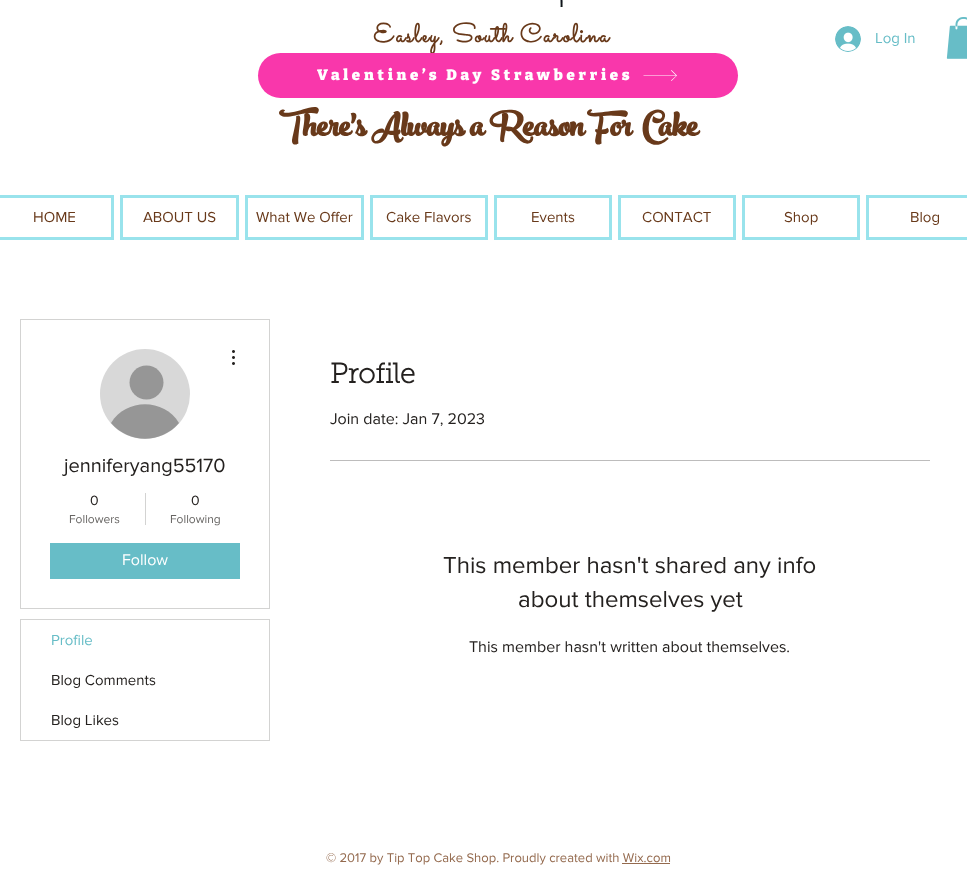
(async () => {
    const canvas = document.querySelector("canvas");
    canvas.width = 967;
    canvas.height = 893;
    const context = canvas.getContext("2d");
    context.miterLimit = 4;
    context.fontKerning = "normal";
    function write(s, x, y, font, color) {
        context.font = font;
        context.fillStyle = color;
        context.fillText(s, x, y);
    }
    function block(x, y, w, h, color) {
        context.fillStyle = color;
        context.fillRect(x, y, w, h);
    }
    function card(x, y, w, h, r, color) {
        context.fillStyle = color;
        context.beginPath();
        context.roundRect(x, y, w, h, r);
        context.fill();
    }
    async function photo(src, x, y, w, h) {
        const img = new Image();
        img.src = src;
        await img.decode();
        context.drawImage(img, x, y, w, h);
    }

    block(0, 0, 967, 893, "rgb(255, 255, 255)");
    await photo("media/1.png", 560, 0, 3, 7);
    context.letterSpacing = "1.3px";
    write("Easley, South Carolina", 373, 42, "bold 26px Sacramento", "rgb(104, 57, 26)");
    await photo("media/2.png", 835, 26, 26, 26);
    context.letterSpacing = "0px";
    write("Log In", 875, 43, "15px 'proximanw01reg'", "rgb(103, 189, 199)");
    await photo("media/3.png", 946, 17, 21, 42);
    card(258, 53, 480, 45, 22.5, "rgb(249, 55, 171)");
    context.letterSpacing = "3.75px";
    write("Valentine’s Day Strawberries", 317, 80, "900 15px Bitter", "rgb(255, 255, 255)");
    context.beginPath();
    context.moveTo(671.5, 70);
    context.lineTo(671, 70.5);
    context.lineTo(676, 75.5);
    context.lineTo(643.5, 75.5);
    context.lineTo(643.5, 76);
    context.lineTo(676, 76);
    context.lineTo(671, 80.5);
    context.lineTo(671.5, 81);
    context.lineTo(677, 75.5);
    context.closePath();
    context.fill();
    context.letterSpacing = "0px";
    write("There's Always a Reason For  Cake", 279, 136, "bold 49px 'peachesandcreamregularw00'", "rgb(104, 57, 26)");
    context.strokeStyle = "rgb(153, 227, 236)";
    context.lineWidth = 3;
    context.strokeRect(-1.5, 196.5, 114, 42);
    write("HOME", 33, 222, "15px 'proximanw01reg'", "rgb(104, 57, 26)");
    context.strokeRect(121.5, 196.5, 116, 42);
    write("ABOUT US", 143, 222, "15px 'proximanw01reg'", "rgb(104, 57, 26)");
    context.strokeRect(246.5, 196.5, 116, 42);
    write("What We Offer", 256, 222, "15px 'proximanw01reg'", "rgb(104, 57, 26)");
    context.strokeRect(371.5, 196.5, 115, 42);
    write("Cake Flavors", 386, 222, "15px 'proximanw01reg'", "rgb(104, 57, 26)");
    context.strokeRect(495.5, 196.5, 115, 42);
    write("Events", 531, 222, "15px 'proximanw01reg'", "rgb(104, 57, 26)");
    context.strokeRect(619.5, 196.5, 115, 42);
    write("CONTACT", 642, 222, "15px 'proximanw01reg'", "rgb(104, 57, 26)");
    context.strokeRect(743.5, 196.5, 115, 42);
    write("Shop", 784, 222, "15px 'proximanw01reg'", "rgb(104, 57, 26)");
    context.strokeRect(867.5, 196.5, 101, 42);
    write("Blog", 910, 222, "15px 'proximanw01reg'", "rgb(104, 57, 26)");
    context.strokeStyle = "rgb(211, 211, 210)";
    context.lineWidth = 1;
    context.strokeRect(20.5, 319.5, 249, 289);
    context.fillStyle = "rgb(216, 216, 216)";
    context.beginPath();
    context.arc(145, 394, 45, 0, Math.PI * 2);
    context.fill();
    context.fillStyle = "rgb(150, 150, 150)";
    context.beginPath();
    context.arc(146.5, 382.5, 17, 0, Math.PI * 2);
    context.fill();
    context.beginPath();
    context.moveTo(179, 423);
    context.bezierCurveTo(161, 444, 129, 444, 111, 423);
    context.bezierCurveTo(126, 398, 164, 398, 179, 423);
    context.closePath();
    context.fill();
    await photo("media/4.png", 232, 350, 3, 15);
    write("jenniferyang55170", 64, 472, "20px 'proximanw01reg'", "rgb(36, 33, 31)");
    write("0", 90, 505, "14px 'proximanw01reg'", "rgb(36, 33, 31)");
    write("Followers", 69, 523, "12px 'proximanw01reg'", "rgb(102, 100, 98)");
    block(145, 493, 1, 32, "rgb(211, 211, 210)");
    write("0", 191, 505, "14px 'proximanw01reg'", "rgb(36, 33, 31)");
    write("Following", 170, 523, "12px 'proximanw01reg'", "rgb(102, 100, 98)");
    block(50, 543, 190, 36, "rgb(103, 189, 199)");
    write("Follow", 122, 565, "16px 'proximanw01reg'", "rgb(255, 255, 255)");
    context.strokeRect(20.5, 619.5, 249, 121);
    write("Profile", 51, 645, "15px 'proximanw01reg'", "rgb(103, 189, 199)");
    write("Blog Comments", 51, 685, "15px 'proximanw01reg'", "rgb(36, 33, 31)");
    write("Blog Likes", 51, 725, "15px 'proximanw01reg'", "rgb(36, 33, 31)");
    write("Profile", 330, 383, "bold 28px 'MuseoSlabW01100'", "rgb(36, 33, 31)");
    write("Join date: Jan 7, 2023", 330, 424, "16px 'proximanw01reg'", "rgb(36, 33, 31)");
    block(330, 460, 600, 1, "rgb(189, 188, 188)");
    write("This member hasn't shared any info", 443, 573, "24px 'proximanw01reg'", "rgb(36, 33, 31)");
    write("about themselves yet", 518, 607, "24px 'proximanw01reg'", "rgb(36, 33, 31)");
    write("This member hasn't written about themselves.", 469, 652, "16px 'proximanw01reg'", "rgb(36, 33, 31)");
    write("© 2017 by Tip Top Cake Shop. Proudly created with Wix.com", 326, 862, "13px 'proximanw01reg'", "rgb(148, 106, 78)");
    block(622, 863, 48, 1, "rgb(148, 106, 78)");
})();
